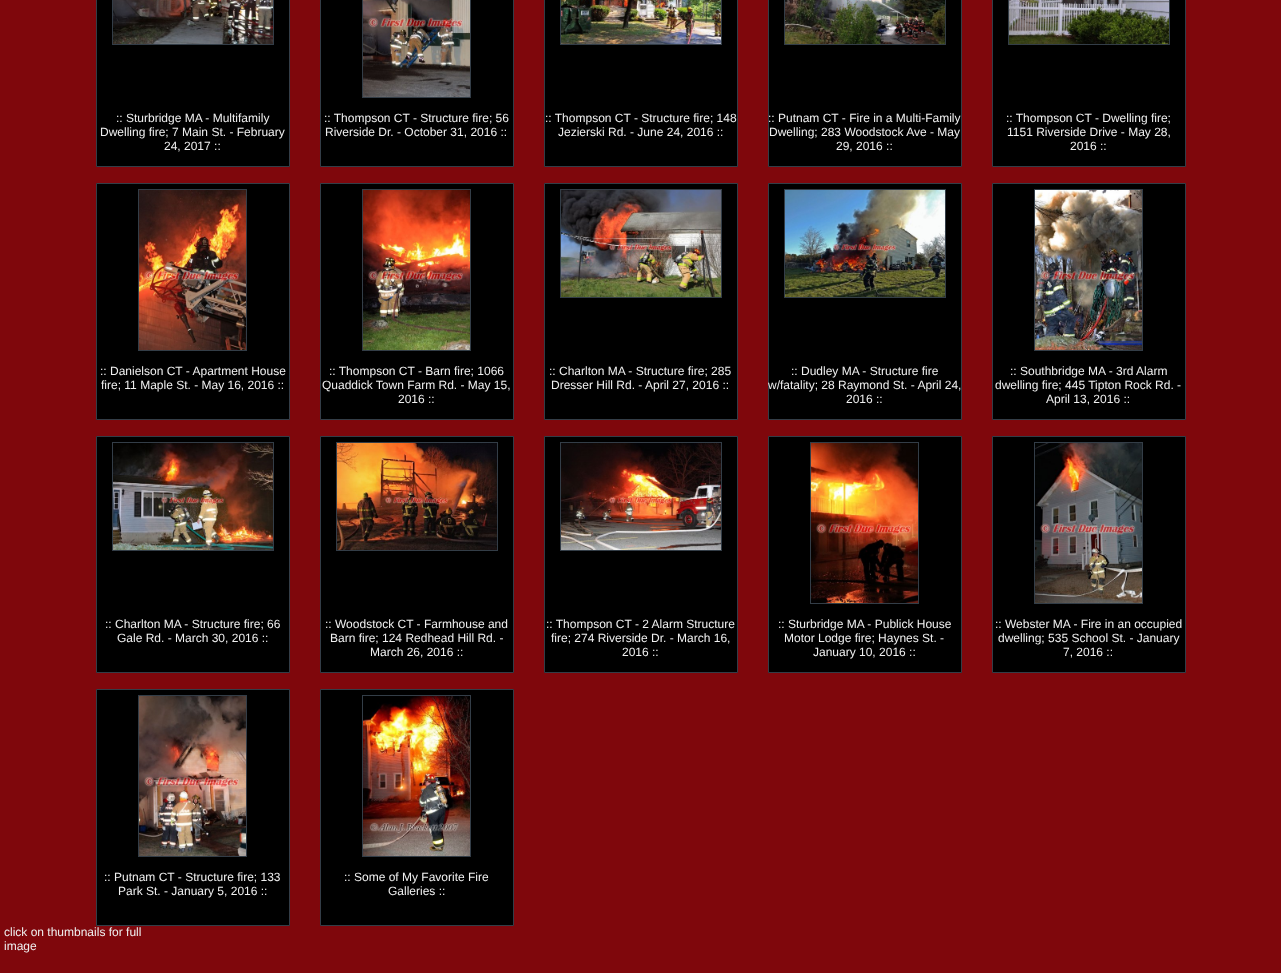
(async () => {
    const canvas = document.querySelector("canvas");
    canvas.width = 1281;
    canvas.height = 973;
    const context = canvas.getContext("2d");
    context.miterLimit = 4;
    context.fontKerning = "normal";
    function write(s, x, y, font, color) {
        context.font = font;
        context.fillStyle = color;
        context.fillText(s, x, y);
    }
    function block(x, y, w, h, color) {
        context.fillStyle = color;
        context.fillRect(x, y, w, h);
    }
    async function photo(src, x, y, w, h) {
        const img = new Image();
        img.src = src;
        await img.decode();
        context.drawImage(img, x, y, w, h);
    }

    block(0, 0, 1281, 973, "rgb(127, 7, 12)");
    context.fillStyle = "rgb(0, 0, 0)";
    context.beginPath();
    context.rect(96.5, -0.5, 193, 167);
    context.fill();
    context.strokeStyle = "rgb(51, 61, 71)";
    context.stroke();
    context.strokeRect(112.5, -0.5, 161, 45);
    await photo("media/1.png", 113, 0, 160, 44);
    write(":: Sturbridge MA - Multifamily", 116, 122, "12px Liberation Sans", "rgb(239, 239, 239)");
    write("Dwelling fire; 7 Main St. - February", 100, 136, "12px Liberation Sans", "rgb(239, 239, 239)");
    write("24, 2017 ::", 164, 150, "12px Liberation Sans", "rgb(239, 239, 239)");
    context.fillStyle = "rgb(0, 0, 0)";
    context.beginPath();
    context.rect(320.5, -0.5, 193, 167);
    context.fill();
    context.stroke();
    context.strokeRect(362.5, -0.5, 108, 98);
    await photo("media/2.png", 363, 0, 107, 97);
    write(":: Thompson CT - Structure fire; 56", 324, 122, "12px Liberation Sans", "rgb(239, 239, 239)");
    write("Riverside Dr. - October 31, 2016 ::", 325, 136, "12px Liberation Sans", "rgb(239, 239, 239)");
    context.fillStyle = "rgb(0, 0, 0)";
    context.beginPath();
    context.rect(544.5, -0.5, 193, 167);
    context.fill();
    context.stroke();
    context.strokeRect(560.5, -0.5, 161, 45);
    await photo("media/3.png", 561, 0, 160, 44);
    write(":: Thompson CT - Structure fire; 148", 545, 122, "12px Liberation Sans", "rgb(239, 239, 239)");
    write("Jezierski Rd. - June 24, 2016 ::", 558, 136, "12px Liberation Sans", "rgb(239, 239, 239)");
    context.fillStyle = "rgb(0, 0, 0)";
    context.beginPath();
    context.rect(768.5, -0.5, 193, 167);
    context.fill();
    context.stroke();
    context.strokeRect(784.5, -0.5, 161, 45);
    await photo("media/4.png", 785, 0, 160, 44);
    write(":: Putnam CT - Fire in a Multi-Family", 768, 122, "12px Liberation Sans", "rgb(239, 239, 239)");
    write("Dwelling; 283 Woodstock Ave - May", 769, 136, "12px Liberation Sans", "rgb(239, 239, 239)");
    write("29, 2016 ::", 836, 150, "12px Liberation Sans", "rgb(239, 239, 239)");
    context.fillStyle = "rgb(0, 0, 0)";
    context.beginPath();
    context.rect(992.5, -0.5, 193, 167);
    context.fill();
    context.stroke();
    context.strokeRect(1008.5, -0.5, 161, 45);
    await photo("media/5.png", 1009, 0, 160, 44);
    write(":: Thompson CT - Dwelling fire;", 1006, 122, "12px Liberation Sans", "rgb(239, 239, 239)");
    write("1151 Riverside Drive - May 28,", 1007, 136, "12px Liberation Sans", "rgb(239, 239, 239)");
    write("2016 ::", 1070, 150, "12px Liberation Sans", "rgb(239, 239, 239)");
    context.fillStyle = "rgb(0, 0, 0)";
    context.beginPath();
    context.rect(96.5, 183.5, 193, 236);
    context.fill();
    context.stroke();
    context.strokeRect(138.5, 189.5, 108, 161);
    await photo("media/6.png", 139, 190, 107, 160);
    write(":: Danielson CT - Apartment House", 100, 375, "12px Liberation Sans", "rgb(239, 239, 239)");
    write("fire; 11 Maple St. - May 16, 2016 ::", 101, 389, "12px Liberation Sans", "rgb(239, 239, 239)");
    context.fillStyle = "rgb(0, 0, 0)";
    context.beginPath();
    context.rect(320.5, 183.5, 193, 236);
    context.fill();
    context.stroke();
    context.strokeRect(362.5, 189.5, 108, 161);
    await photo("media/7.png", 363, 190, 107, 160);
    write(":: Thompson CT - Barn fire; 1066", 329, 375, "12px Liberation Sans", "rgb(239, 239, 239)");
    write("Quaddick Town Farm Rd. - May 15,", 322, 389, "12px Liberation Sans", "rgb(239, 239, 239)");
    write("2016 ::", 398, 403, "12px Liberation Sans", "rgb(239, 239, 239)");
    context.fillStyle = "rgb(0, 0, 0)";
    context.beginPath();
    context.rect(544.5, 183.5, 193, 236);
    context.fill();
    context.stroke();
    context.strokeRect(560.5, 189.5, 161, 108);
    await photo("media/8.png", 561, 190, 160, 107);
    write(":: Charlton MA - Structure fire; 285", 549, 375, "12px Liberation Sans", "rgb(239, 239, 239)");
    write("Dresser Hill Rd. - April 27, 2016 ::", 551, 389, "12px Liberation Sans", "rgb(239, 239, 239)");
    context.fillStyle = "rgb(0, 0, 0)";
    context.beginPath();
    context.rect(768.5, 183.5, 193, 236);
    context.fill();
    context.stroke();
    context.strokeRect(784.5, 189.5, 161, 108);
    await photo("media/9.png", 785, 190, 160, 107);
    write(":: Dudley MA - Structure fire", 791, 375, "12px Liberation Sans", "rgb(239, 239, 239)");
    write("w/fatality; 28 Raymond St. - April 24,", 768, 389, "12px Liberation Sans", "rgb(239, 239, 239)");
    write("2016 ::", 846, 403, "12px Liberation Sans", "rgb(239, 239, 239)");
    context.fillStyle = "rgb(0, 0, 0)";
    context.beginPath();
    context.rect(992.5, 183.5, 193, 236);
    context.fill();
    context.stroke();
    context.strokeRect(1034.5, 189.5, 108, 161);
    await photo("media/10.png", 1035, 190, 107, 160);
    write(":: Southbridge MA - 3rd Alarm", 1010, 375, "12px Liberation Sans", "rgb(239, 239, 239)");
    write("dwelling fire; 445 Tipton Rock Rd. -", 995, 389, "12px Liberation Sans", "rgb(239, 239, 239)");
    write("April 13, 2016 ::", 1046, 403, "12px Liberation Sans", "rgb(239, 239, 239)");
    context.fillStyle = "rgb(0, 0, 0)";
    context.beginPath();
    context.rect(96.5, 436.5, 193, 236);
    context.fill();
    context.stroke();
    context.strokeRect(112.5, 442.5, 161, 108);
    await photo("media/11.png", 113, 443, 160, 107);
    write(":: Charlton MA - Structure fire; 66", 105, 628, "12px Liberation Sans", "rgb(239, 239, 239)");
    write("Gale Rd. - March 30, 2016 ::", 117, 642, "12px Liberation Sans", "rgb(239, 239, 239)");
    context.fillStyle = "rgb(0, 0, 0)";
    context.beginPath();
    context.rect(320.5, 436.5, 193, 236);
    context.fill();
    context.stroke();
    context.strokeRect(336.5, 442.5, 161, 108);
    await photo("media/12.png", 337, 443, 160, 107);
    write(":: Woodstock CT - Farmhouse and", 325, 628, "12px Liberation Sans", "rgb(239, 239, 239)");
    write("Barn fire; 124 Redhead Hill Rd. -", 330, 642, "12px Liberation Sans", "rgb(239, 239, 239)");
    write("March 26, 2016 ::", 370, 656, "12px Liberation Sans", "rgb(239, 239, 239)");
    context.fillStyle = "rgb(0, 0, 0)";
    context.beginPath();
    context.rect(544.5, 436.5, 193, 236);
    context.fill();
    context.stroke();
    context.strokeRect(560.5, 442.5, 161, 108);
    await photo("media/13.png", 561, 443, 160, 107);
    write(":: Thompson CT - 2 Alarm Structure", 546, 628, "12px Liberation Sans", "rgb(239, 239, 239)");
    write("fire; 274 Riverside Dr. - March 16,", 551, 642, "12px Liberation Sans", "rgb(239, 239, 239)");
    write("2016 ::", 622, 656, "12px Liberation Sans", "rgb(239, 239, 239)");
    context.fillStyle = "rgb(0, 0, 0)";
    context.beginPath();
    context.rect(768.5, 436.5, 193, 236);
    context.fill();
    context.stroke();
    context.strokeRect(810.5, 442.5, 108, 161);
    await photo("media/14.png", 811, 443, 107, 160);
    write(":: Sturbridge MA - Publick House", 778, 628, "12px Liberation Sans", "rgb(239, 239, 239)");
    write("Motor Lodge fire; Haynes St. -", 784, 642, "12px Liberation Sans", "rgb(239, 239, 239)");
    write("January 10, 2016 ::", 813, 656, "12px Liberation Sans", "rgb(239, 239, 239)");
    context.fillStyle = "rgb(0, 0, 0)";
    context.beginPath();
    context.rect(992.5, 436.5, 193, 236);
    context.fill();
    context.stroke();
    context.strokeRect(1034.5, 442.5, 108, 161);
    await photo("media/15.png", 1035, 443, 107, 160);
    write(":: Webster MA - Fire in an occupied", 995, 628, "12px Liberation Sans", "rgb(239, 239, 239)");
    write("dwelling; 535 School St. - January", 998, 642, "12px Liberation Sans", "rgb(239, 239, 239)");
    write("7, 2016 ::", 1063, 656, "12px Liberation Sans", "rgb(239, 239, 239)");
    context.fillStyle = "rgb(0, 0, 0)";
    context.beginPath();
    context.rect(96.5, 689.5, 193, 236);
    context.fill();
    context.stroke();
    context.strokeRect(138.5, 695.5, 108, 161);
    await photo("media/16.png", 139, 696, 107, 160);
    write(":: Putnam CT - Structure fire; 133", 104, 881, "12px Liberation Sans", "rgb(239, 239, 239)");
    write("Park St. - January 5, 2016 ::", 118, 895, "12px Liberation Sans", "rgb(239, 239, 239)");
    context.fillStyle = "rgb(0, 0, 0)";
    context.beginPath();
    context.rect(320.5, 689.5, 193, 236);
    context.fill();
    context.stroke();
    context.strokeRect(362.5, 695.5, 108, 161);
    await photo("media/17.png", 363, 696, 107, 160);
    write(":: Some of My Favorite Fire", 344, 881, "12px Liberation Sans", "rgb(239, 239, 239)");
    write("Galleries ::", 388, 895, "12px Liberation Sans", "rgb(239, 239, 239)");
    write("click on thumbnails for full", 4, 936, "12px Liberation Sans", "rgb(239, 239, 239)");
    write("image", 4, 950, "12px Liberation Sans", "rgb(239, 239, 239)");
})();
